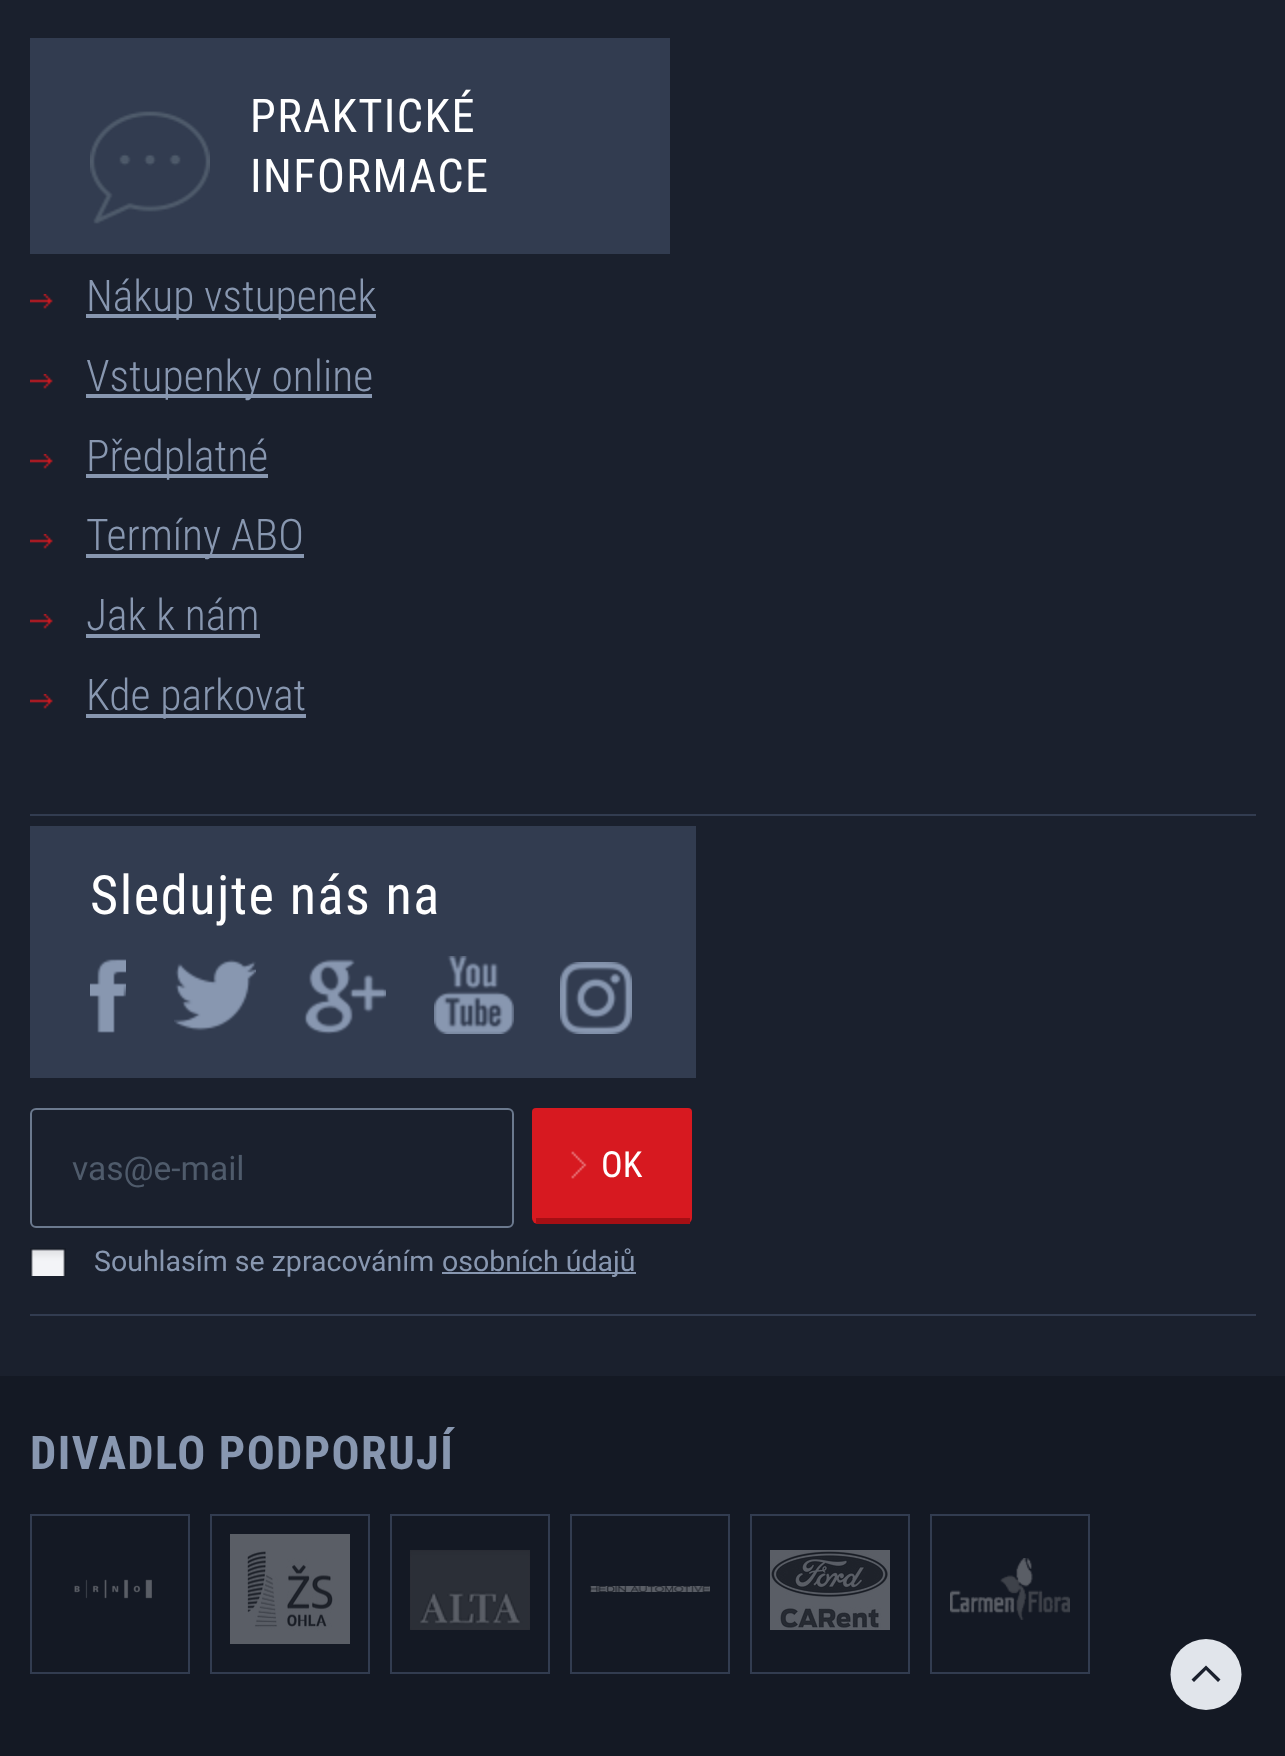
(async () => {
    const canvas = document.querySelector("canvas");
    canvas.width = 1285;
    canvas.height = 1756;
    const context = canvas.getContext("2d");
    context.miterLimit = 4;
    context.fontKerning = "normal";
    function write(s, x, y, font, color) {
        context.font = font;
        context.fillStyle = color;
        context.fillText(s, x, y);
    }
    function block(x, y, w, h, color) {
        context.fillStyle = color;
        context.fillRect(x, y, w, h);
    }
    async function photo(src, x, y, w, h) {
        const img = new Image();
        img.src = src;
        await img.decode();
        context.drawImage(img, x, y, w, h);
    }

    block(0, 0, 1285, 1756, "rgb(26, 32, 45)");
    block(30, 38, 640, 216, "rgb(50, 60, 80)");
    await photo("media/1.png", 90, 111, 120, 113);
    context.letterSpacing = "1.4px";
    write("PRAKTICKÉ", 250, 132, "46.5px Roboto Condensed", "rgb(255, 255, 255)");
    write("INFORMACE", 250, 192, "46.5px Roboto Condensed", "rgb(255, 255, 255)");
    await photo("media/2.png", 30, 294, 23, 15);
    block(86, 314, 290, 4, "rgb(136, 151, 176)");
    context.letterSpacing = "0px";
    write("Nákup vstupenek", 86, 311, "300 43.5px Roboto Condensed", "rgb(136, 151, 176)");
    await photo("media/2.png", 30, 374, 23, 15);
    block(86, 394, 286, 4, "rgb(136, 151, 176)");
    write("Vstupenky online", 86, 391, "300 43.5px Roboto Condensed", "rgb(136, 151, 176)");
    await photo("media/3.png", 30, 454, 23, 15);
    block(86, 474, 182, 4, "rgb(136, 151, 176)");
    write("Předplatné", 86, 471, "300 43.5px Roboto Condensed", "rgb(136, 151, 176)");
    await photo("media/3.png", 30, 534, 23, 15);
    block(86, 554, 218, 4, "rgb(136, 151, 176)");
    write("Termíny ABO", 86, 550, "300 43.5px Roboto Condensed", "rgb(136, 151, 176)");
    await photo("media/3.png", 30, 614, 23, 15);
    write("Jak k nám", 86, 630, "300 43.5px Roboto Condensed", "rgb(136, 151, 176)");
    block(86, 634, 174, 4, "rgb(136, 151, 176)");
    await photo("media/3.png", 30, 694, 23, 15);
    block(86, 714, 220, 4, "rgb(136, 151, 176)");
    write("Kde parkovat", 86, 710, "300 43.5px Roboto Condensed", "rgb(136, 151, 176)");
    block(30, 814, 1226, 2, "rgb(50, 60, 80)");
    block(30, 1314, 1226, 2, "rgb(50, 60, 80)");
    block(30, 826, 666, 252, "rgb(50, 60, 80)");
    context.letterSpacing = "1.6px";
    write("Sledujte nás na", 90, 914, "54.25px Roboto Condensed", "rgb(255, 255, 255)");
    await photo("media/4.png", 90, 959, 36, 74);
    await photo("media/5.png", 174, 959, 82, 72);
    await photo("media/6.png", 304, 959, 82, 75);
    await photo("media/7.png", 434, 956, 80, 78);
    await photo("media/8.png", 560, 962, 72, 72);
    context.beginPath();
    context.roundRect(31, 1109, 482, 118, 5);
    context.strokeStyle = "rgb(107, 121, 142)";
    context.lineWidth = 2;
    context.stroke();
    context.letterSpacing = "0px";
    write("vas@e-mail", 72, 1180, "33.5px Roboto", "rgb(79, 91, 107)");
    context.fillStyle = "rgb(215, 25, 32)";
    context.beginPath();
    context.roundRect(532, 1108, 160, 116, [4, 4, 6, 6]);
    context.fill();
    await photo("media/9.png", 571, 1151, 16, 28);
    block(536, 1218, 154, 6, "rgb(165, 15, 20)");
    write("OK", 601, 1177, "36px Roboto Condensed", "rgb(255, 255, 255)");
    await photo("media/10.png", 30, 1248, 36, 28);
    write("Souhlasím se zpracováním", 94, 1271, "28.5px Roboto", "rgb(136, 151, 176)");
    block(442, 1272, 194, 2, "rgb(136, 151, 176)");
    write("osobních údajů", 442, 1271, "28.5px Roboto", "rgb(136, 151, 176)");
    block(0, 1376, 1285, 380, "rgb(20, 25, 36)");
    context.letterSpacing = "1.4px";
    write("DIVADLO PODPORUJÍ", 30, 1469, "bold 46.5px Roboto Condensed", "rgb(136, 151, 176)");
    context.strokeStyle = "rgb(50, 60, 80)";
    context.strokeRect(31, 1515, 158, 158);
    await photo("media/11.png", 74, 1579, 78, 20);
    context.strokeRect(211, 1515, 158, 158);
    await photo("media/12.png", 230, 1534, 120, 110);
    context.strokeRect(391, 1515, 158, 158);
    await photo("media/13.png", 410, 1550, 120, 80);
    context.strokeRect(571, 1515, 158, 158);
    await photo("media/14.png", 590, 1586, 120, 6);
    context.strokeRect(751, 1515, 158, 158);
    await photo("media/15.png", 770, 1550, 120, 80);
    context.strokeRect(931, 1515, 158, 158);
    await photo("media/16.png", 950, 1558, 120, 62);
    context.fillStyle = "rgb(225, 229, 235)";
    context.beginPath();
    context.arc(1206, 1674.5, 35.5, 0, Math.PI * 2);
    context.fill();
    context.fillStyle = "rgb(26, 32, 45)";
    context.beginPath();
    context.moveTo(1220.5, 1679.5);
    context.lineTo(1218, 1682);
    context.lineTo(1206, 1670);
    context.lineTo(1194, 1682);
    context.lineTo(1191.5, 1679.5);
    context.lineTo(1206, 1665.5);
    context.closePath();
    context.fill();
})();
